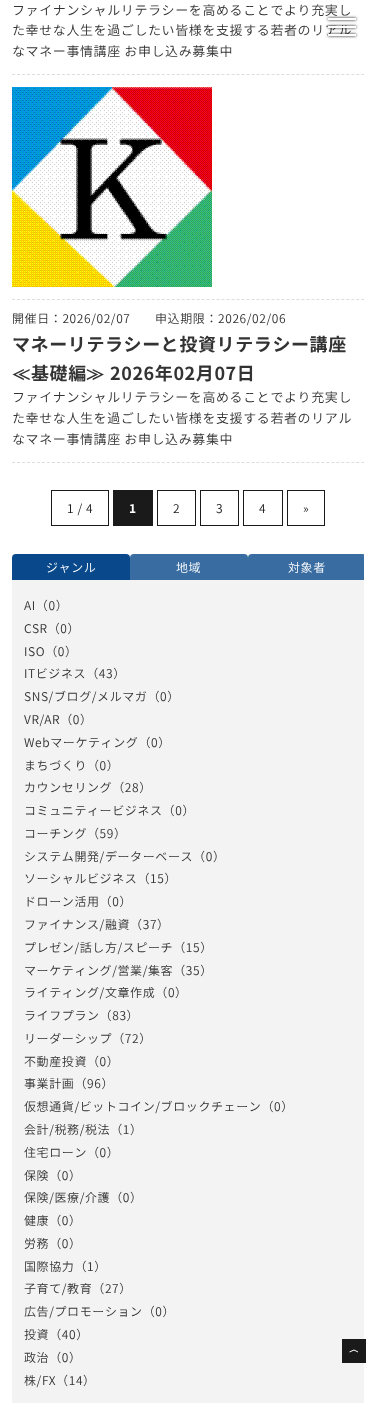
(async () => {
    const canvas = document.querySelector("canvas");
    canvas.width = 376;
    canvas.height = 1403;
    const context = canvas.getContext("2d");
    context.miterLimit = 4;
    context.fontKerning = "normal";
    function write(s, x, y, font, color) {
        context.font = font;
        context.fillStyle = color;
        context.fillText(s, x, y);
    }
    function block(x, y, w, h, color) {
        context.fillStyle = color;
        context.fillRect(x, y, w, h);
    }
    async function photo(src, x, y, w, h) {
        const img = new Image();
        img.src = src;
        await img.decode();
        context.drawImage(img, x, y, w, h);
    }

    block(0, 0, 376, 1403, "rgb(255, 255, 255)");
    context.beginPath();
    context.moveTo(12, 74.5);
    context.lineTo(364, 74.5);
    context.strokeStyle = "rgb(221, 221, 221)";
    context.setLineDash([3, 1.99]);
    context.stroke();
    context.letterSpacing = "0.6px";
    write("ファイナンシャルリテラシーを高めることでより充実し", 12, 15, "300 13px Noto Sans JP", "rgb(51, 51, 51)");
    write("た幸せな人生を過ごしたい皆様を支援する若者のリアル", 12, 35, "300 13px Noto Sans JP", "rgb(51, 51, 51)");
    write("なマネー事情講座 お申し込み募集中", 12, 56, "300 13px Noto Sans JP", "rgb(51, 51, 51)");
    context.beginPath();
    context.moveTo(12, 299.5);
    context.lineTo(364, 299.5);
    context.stroke();
    await photo("media/1.png", 12, 87, 200, 200);
    context.beginPath();
    context.moveTo(12, 462.5);
    context.lineTo(364, 462.5);
    context.stroke();
    write("開催日：2026/02/07", 12, 323, "300 12px Noto Sans JP", "rgb(51, 51, 51)");
    write("申込期限：2026/02/06", 155, 323, "300 12px Noto Sans JP", "rgb(51, 51, 51)");
    write("マネーリテラシーと投資リテラシー講座", 12, 351, "bold 18px Noto Sans JP", "rgb(51, 51, 51)");
    write("≪", 12, 380, "bold 18px WenQuanYi Zen Hei", "rgb(51, 51, 51)");
    write("基礎編", 31, 380, "bold 18px Noto Sans JP", "rgb(51, 51, 51)");
    write("≫", 86, 380, "bold 18px WenQuanYi Zen Hei", "rgb(51, 51, 51)");
    write("2026年02月07日", 110, 380, "bold 18px Noto Sans JP", "rgb(51, 51, 51)");
    write("ファイナンシャルリテラシーを高めることでより充実し", 12, 402, "300 13px Noto Sans JP", "rgb(51, 51, 51)");
    write("た幸せな人生を過ごしたい皆様を支援する若者のリアル", 12, 423, "300 13px Noto Sans JP", "rgb(51, 51, 51)");
    write("なマネー事情講座 お申し込み募集中", 12, 444, "300 13px Noto Sans JP", "rgb(51, 51, 51)");
    context.strokeStyle = "rgb(26, 26, 26)";
    context.setLineDash([]);
    context.strokeRect(51.5, 490.5, 57, 35);
    write("1 / 4", 67, 513, "300 12px Noto Sans JP", "rgb(26, 26, 26)");
    block(113, 490, 40, 36, "rgb(26, 26, 26)");
    write("1", 129, 513, "bold 12px Noto Sans JP", "rgb(255, 255, 255)");
    context.strokeRect(157.5, 490.5, 38, 35);
    write("2", 173, 513, "300 12px Noto Sans JP", "rgb(26, 26, 26)");
    context.strokeRect(200.5, 490.5, 38, 35);
    write("3", 216, 513, "300 12px Noto Sans JP", "rgb(26, 26, 26)");
    context.strokeRect(243.5, 490.5, 39, 35);
    write("4", 259, 513, "300 12px Noto Sans JP", "rgb(26, 26, 26)");
    context.strokeRect(287.5, 490.5, 37, 35);
    write("»", 303, 513, "300 12px Noto Sans JP", "rgb(26, 26, 26)");
    context.fillStyle = "rgb(8, 72, 139)";
    context.beginPath();
    context.roundRect(12, 554, 118, 26, [4, 4, 0, 0]);
    context.fill();
    write("ジャンル", 46, 572, "300 12px Noto Sans JP", "rgb(255, 255, 255)");
    context.fillStyle = "rgb(57, 109, 162)";
    context.beginPath();
    context.roundRect(130, 554, 118, 26, [4, 4, 0, 0]);
    context.fill();
    write("地域", 176, 572, "300 12px Noto Sans JP", "rgb(255, 255, 255)");
    context.save();
    context.beginPath();
    context.rect(12, 554, 352, 26);
    context.clip();
    context.fillStyle = "rgb(57, 109, 162)";
    context.beginPath();
    context.roundRect(248, 554, 118, 26, [4, 4, 0, 0]);
    context.fill();
    context.restore();
    write("対象者", 288, 572, "300 12px Noto Sans JP", "rgb(255, 255, 255)");
    block(12, 580, 352, 823, "rgb(243, 243, 243)");
    write("AI（0）", 24, 610, "300 12px Noto Sans JP", "rgb(51, 51, 51)");
    write("CSR（0）", 24, 633, "300 12px Noto Sans JP", "rgb(51, 51, 51)");
    write("ISO（0）", 24, 656, "300 12px Noto Sans JP", "rgb(51, 51, 51)");
    write("ITビジネス（43）", 24, 678, "300 12px Noto Sans JP", "rgb(51, 51, 51)");
    write("SNS/ブログ/メルマガ（0）", 24, 701, "300 12px Noto Sans JP", "rgb(51, 51, 51)");
    write("VR/AR（0）", 24, 724, "300 12px Noto Sans JP", "rgb(51, 51, 51)");
    write("Webマーケティング（0）", 24, 747, "300 12px Noto Sans JP", "rgb(51, 51, 51)");
    write("まちづくり（0）", 24, 770, "300 12px Noto Sans JP", "rgb(51, 51, 51)");
    write("カウンセリング（28）", 24, 792, "300 12px Noto Sans JP", "rgb(51, 51, 51)");
    write("コミュニティービジネス（0）", 24, 815, "300 12px Noto Sans JP", "rgb(51, 51, 51)");
    write("コーチング（59）", 24, 838, "300 12px Noto Sans JP", "rgb(51, 51, 51)");
    write("システム開発/データーベース（0）", 24, 861, "300 12px Noto Sans JP", "rgb(51, 51, 51)");
    write("ソーシャルビジネス（15）", 24, 883, "300 12px Noto Sans JP", "rgb(51, 51, 51)");
    write("ドローン活用（0）", 24, 906, "300 12px Noto Sans JP", "rgb(51, 51, 51)");
    write("ファイナンス/融資（37）", 24, 929, "300 12px Noto Sans JP", "rgb(51, 51, 51)");
    write("プレゼン/話し方/スピーチ（15）", 24, 952, "300 12px Noto Sans JP", "rgb(51, 51, 51)");
    write("マーケティング/営業/集客（35）", 24, 975, "300 12px Noto Sans JP", "rgb(51, 51, 51)");
    write("ライティング/文章作成（0）", 24, 997, "300 12px Noto Sans JP", "rgb(51, 51, 51)");
    write("ライフプラン（83）", 24, 1020, "300 12px Noto Sans JP", "rgb(51, 51, 51)");
    write("リーダーシップ（72）", 24, 1043, "300 12px Noto Sans JP", "rgb(51, 51, 51)");
    write("不動産投資（0）", 24, 1066, "300 12px Noto Sans JP", "rgb(51, 51, 51)");
    write("事業計画（96）", 24, 1088, "300 12px Noto Sans JP", "rgb(51, 51, 51)");
    write("仮想通貨/ビットコイン/ブロックチェーン（0）", 24, 1111, "300 12px Noto Sans JP", "rgb(51, 51, 51)");
    write("会計/税務/税法（1）", 24, 1134, "300 12px Noto Sans JP", "rgb(51, 51, 51)");
    write("住宅ローン（0）", 24, 1157, "300 12px Noto Sans JP", "rgb(51, 51, 51)");
    write("保険（0）", 24, 1180, "300 12px Noto Sans JP", "rgb(51, 51, 51)");
    write("保険/医療/介護（0）", 24, 1202, "300 12px Noto Sans JP", "rgb(51, 51, 51)");
    write("健康（0）", 24, 1225, "300 12px Noto Sans JP", "rgb(51, 51, 51)");
    write("労務（0）", 24, 1248, "300 12px Noto Sans JP", "rgb(51, 51, 51)");
    write("国際協力（1）", 24, 1271, "300 12px Noto Sans JP", "rgb(51, 51, 51)");
    write("子育て/教育（27）", 24, 1293, "300 12px Noto Sans JP", "rgb(51, 51, 51)");
    write("広告/プロモーション（0）", 24, 1316, "300 12px Noto Sans JP", "rgb(51, 51, 51)");
    write("投資（40）", 24, 1339, "300 12px Noto Sans JP", "rgb(51, 51, 51)");
    write("政治（0）", 24, 1362, "300 12px Noto Sans JP", "rgb(51, 51, 51)");
    write("株/FX（14）", 24, 1385, "300 12px Noto Sans JP", "rgb(51, 51, 51)");
    context.fillStyle = "rgb(0, 0, 0)";
    context.filter = "blur(1.5px)";
    context.beginPath();
    context.rect(328, 26, 28, 2);
    context.fill();
    context.filter = "none";
    block(328, 26, 28, 2, "rgb(255, 255, 255)");
    context.fillStyle = "rgb(0, 0, 0)";
    context.filter = "blur(1.5px)";
    context.beginPath();
    context.rect(328, 18, 28, 2);
    context.fill();
    context.filter = "none";
    block(328, 18, 28, 2, "rgb(255, 255, 255)");
    context.fillStyle = "rgb(0, 0, 0)";
    context.filter = "blur(1.5px)";
    context.beginPath();
    context.rect(328, 34, 28, 2);
    context.fill();
    context.filter = "none";
    block(328, 34, 28, 2, "rgb(255, 255, 255)");
    block(342, 1339, 24, 24, "rgb(26, 26, 26)");
    context.fillStyle = "rgb(255, 255, 255)";
    context.beginPath();
    context.moveTo(349.5, 1351.5);
    context.lineTo(354, 1349.5);
    context.lineTo(358, 1351.5);
    context.lineTo(358, 1352.5);
    context.lineTo(354, 1350.5);
    context.lineTo(349.5, 1352.5);
    context.closePath();
    context.fill();
})();
